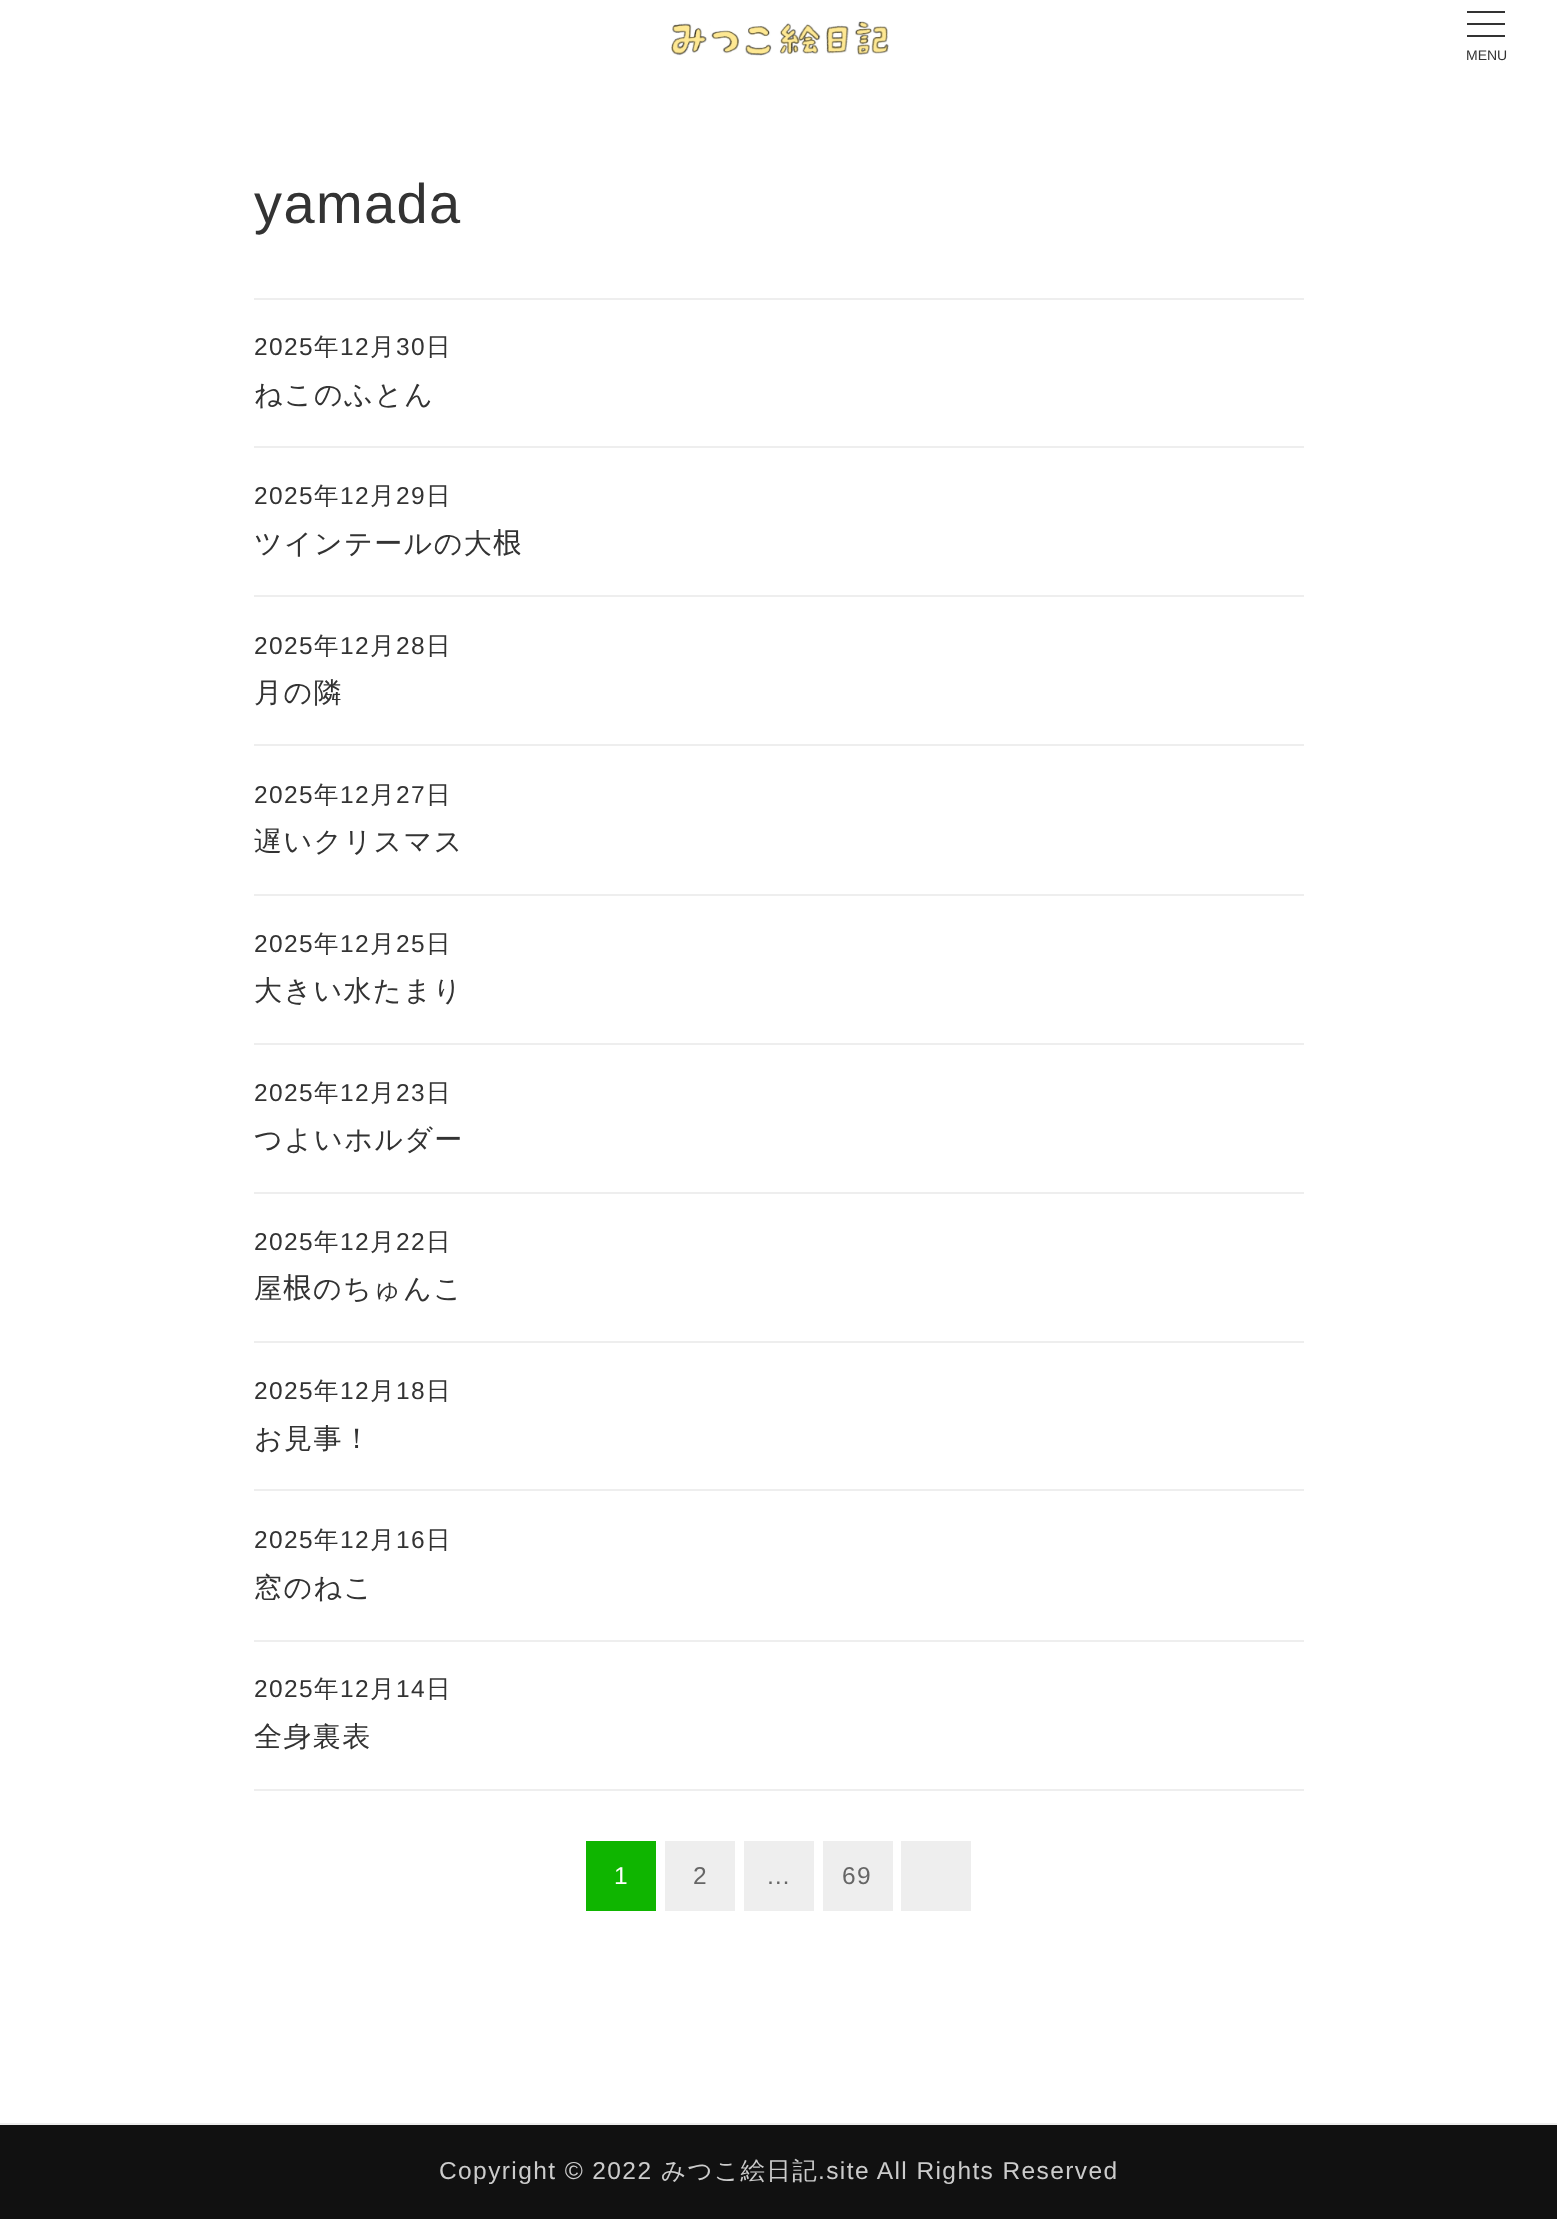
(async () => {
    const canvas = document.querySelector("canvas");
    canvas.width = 1557;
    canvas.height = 2219;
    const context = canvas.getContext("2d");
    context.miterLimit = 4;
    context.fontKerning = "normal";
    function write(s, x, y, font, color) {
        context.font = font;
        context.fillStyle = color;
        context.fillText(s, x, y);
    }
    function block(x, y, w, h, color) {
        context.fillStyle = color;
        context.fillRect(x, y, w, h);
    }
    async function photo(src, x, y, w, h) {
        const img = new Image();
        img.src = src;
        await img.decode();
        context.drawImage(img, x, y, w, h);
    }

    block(0, 0, 1557, 2219, "rgb(255, 255, 255)");
    await photo("media/1.png", 671, 21, 218, 35);
    block(1467, 11, 38, 2, "rgb(51, 51, 51)");
    block(1467, 23, 38, 2, "rgb(51, 51, 51)");
    block(1467, 35, 38, 2, "rgb(51, 51, 51)");
    write("MENU", 1466, 60, "14px Liberation Sans", "rgb(51, 51, 51)");
    context.letterSpacing = "1.4px";
    write("yamada", 254, 223, "56px Liberation Sans", "rgb(51, 51, 51)");
    block(254, 298, 1050, 2, "rgb(238, 238, 238)");
    block(254, 446, 1050, 2, "rgb(238, 238, 238)");
    write("2025", 254, 355, "24.5px Liberation Sans", "rgb(51, 51, 51)");
    write("年", 314, 355, "500 24.5px WenQuanYi Zen Hei", "rgb(51, 51, 51)");
    write("12", 340, 355, "24.5px Liberation Sans", "rgb(51, 51, 51)");
    write("月", 370, 355, "500 24.5px WenQuanYi Zen Hei", "rgb(51, 51, 51)");
    write("30", 396, 355, "24.5px Liberation Sans", "rgb(51, 51, 51)");
    write("日", 426, 355, "500 24.5px WenQuanYi Zen Hei", "rgb(51, 51, 51)");
    write("ねこのふとん", 254, 404, "500 28px WenQuanYi Zen Hei", "rgb(51, 51, 51)");
    block(254, 595, 1050, 2, "rgb(238, 238, 238)");
    write("2025", 254, 504, "24.5px Liberation Sans", "rgb(51, 51, 51)");
    write("年", 314, 504, "500 24.5px WenQuanYi Zen Hei", "rgb(51, 51, 51)");
    write("12", 340, 504, "24.5px Liberation Sans", "rgb(51, 51, 51)");
    write("月", 370, 504, "500 24.5px WenQuanYi Zen Hei", "rgb(51, 51, 51)");
    write("29", 396, 504, "24.5px Liberation Sans", "rgb(51, 51, 51)");
    write("日", 426, 504, "500 24.5px WenQuanYi Zen Hei", "rgb(51, 51, 51)");
    write("ツインテールの大", 254, 553, "500 28px WenQuanYi Zen Hei", "rgb(51, 51, 51)");
    write("根", 493, 553, "28px BIZ UDPGothic", "rgb(51, 51, 51)");
    block(254, 744, 1050, 2, "rgb(238, 238, 238)");
    write("2025", 254, 654, "24.5px Liberation Sans", "rgb(51, 51, 51)");
    write("年", 314, 654, "500 24.5px WenQuanYi Zen Hei", "rgb(51, 51, 51)");
    write("12", 340, 654, "24.5px Liberation Sans", "rgb(51, 51, 51)");
    write("月", 370, 654, "500 24.5px WenQuanYi Zen Hei", "rgb(51, 51, 51)");
    write("28", 396, 654, "24.5px Liberation Sans", "rgb(51, 51, 51)");
    write("日", 426, 654, "500 24.5px WenQuanYi Zen Hei", "rgb(51, 51, 51)");
    write("月の隣", 254, 702, "500 28px WenQuanYi Zen Hei", "rgb(51, 51, 51)");
    block(254, 894, 1050, 2, "rgb(238, 238, 238)");
    write("2025", 254, 803, "24.5px Liberation Sans", "rgb(51, 51, 51)");
    write("年", 314, 803, "500 24.5px WenQuanYi Zen Hei", "rgb(51, 51, 51)");
    write("12", 340, 803, "24.5px Liberation Sans", "rgb(51, 51, 51)");
    write("月", 370, 803, "500 24.5px WenQuanYi Zen Hei", "rgb(51, 51, 51)");
    write("27", 396, 803, "24.5px Liberation Sans", "rgb(51, 51, 51)");
    write("日", 426, 803, "500 24.5px WenQuanYi Zen Hei", "rgb(51, 51, 51)");
    write("遅いクリスマス", 254, 851, "500 28px WenQuanYi Zen Hei", "rgb(51, 51, 51)");
    block(254, 1043, 1050, 2, "rgb(238, 238, 238)");
    write("2025", 254, 952, "24.5px Liberation Sans", "rgb(51, 51, 51)");
    write("年", 314, 952, "500 24.5px WenQuanYi Zen Hei", "rgb(51, 51, 51)");
    write("12", 340, 952, "24.5px Liberation Sans", "rgb(51, 51, 51)");
    write("月", 370, 952, "500 24.5px WenQuanYi Zen Hei", "rgb(51, 51, 51)");
    write("25", 396, 952, "24.5px Liberation Sans", "rgb(51, 51, 51)");
    write("日", 426, 952, "500 24.5px WenQuanYi Zen Hei", "rgb(51, 51, 51)");
    write("大きい水たまり", 254, 1000, "500 28px WenQuanYi Zen Hei", "rgb(51, 51, 51)");
    block(254, 1192, 1050, 2, "rgb(238, 238, 238)");
    write("2025", 254, 1101, "24.5px Liberation Sans", "rgb(51, 51, 51)");
    write("年", 314, 1101, "500 24.5px WenQuanYi Zen Hei", "rgb(51, 51, 51)");
    write("12", 340, 1101, "24.5px Liberation Sans", "rgb(51, 51, 51)");
    write("月", 370, 1101, "500 24.5px WenQuanYi Zen Hei", "rgb(51, 51, 51)");
    write("23", 396, 1101, "24.5px Liberation Sans", "rgb(51, 51, 51)");
    write("日", 426, 1101, "500 24.5px WenQuanYi Zen Hei", "rgb(51, 51, 51)");
    write("つよいホルダー", 254, 1149, "500 28px WenQuanYi Zen Hei", "rgb(51, 51, 51)");
    block(254, 1341, 1050, 2, "rgb(238, 238, 238)");
    write("2025", 254, 1250, "24.5px Liberation Sans", "rgb(51, 51, 51)");
    write("年", 314, 1250, "500 24.5px WenQuanYi Zen Hei", "rgb(51, 51, 51)");
    write("12", 340, 1250, "24.5px Liberation Sans", "rgb(51, 51, 51)");
    write("月", 370, 1250, "500 24.5px WenQuanYi Zen Hei", "rgb(51, 51, 51)");
    write("22", 396, 1250, "24.5px Liberation Sans", "rgb(51, 51, 51)");
    write("日", 426, 1250, "500 24.5px WenQuanYi Zen Hei", "rgb(51, 51, 51)");
    write("屋", 254, 1298, "500 28px WenQuanYi Zen Hei", "rgb(51, 51, 51)");
    write("根", 283, 1298, "28px BIZ UDPGothic", "rgb(51, 51, 51)");
    write("のちゅんこ", 313, 1298, "500 28px WenQuanYi Zen Hei", "rgb(51, 51, 51)");
    block(254, 1489, 1050, 2, "rgb(238, 238, 238)");
    write("2025", 254, 1399, "24.5px Liberation Sans", "rgb(51, 51, 51)");
    write("年", 314, 1399, "500 24.5px WenQuanYi Zen Hei", "rgb(51, 51, 51)");
    write("12", 340, 1399, "24.5px Liberation Sans", "rgb(51, 51, 51)");
    write("月", 370, 1399, "500 24.5px WenQuanYi Zen Hei", "rgb(51, 51, 51)");
    write("18", 396, 1399, "24.5px Liberation Sans", "rgb(51, 51, 51)");
    write("日", 426, 1399, "500 24.5px WenQuanYi Zen Hei", "rgb(51, 51, 51)");
    write("お見事！", 254, 1448, "500 28px WenQuanYi Zen Hei", "rgb(51, 51, 51)");
    block(254, 1640, 1050, 2, "rgb(238, 238, 238)");
    write("2025", 254, 1548, "24.5px Liberation Sans", "rgb(51, 51, 51)");
    write("年", 314, 1548, "500 24.5px WenQuanYi Zen Hei", "rgb(51, 51, 51)");
    write("12", 340, 1548, "24.5px Liberation Sans", "rgb(51, 51, 51)");
    write("月", 370, 1548, "500 24.5px WenQuanYi Zen Hei", "rgb(51, 51, 51)");
    write("16", 396, 1548, "24.5px Liberation Sans", "rgb(51, 51, 51)");
    write("日", 426, 1548, "500 24.5px WenQuanYi Zen Hei", "rgb(51, 51, 51)");
    write("窓のねこ", 254, 1597, "500 28px WenQuanYi Zen Hei", "rgb(51, 51, 51)");
    block(254, 1789, 1050, 2, "rgb(238, 238, 238)");
    write("2025", 254, 1697, "24.5px Liberation Sans", "rgb(51, 51, 51)");
    write("年", 314, 1697, "500 24.5px WenQuanYi Zen Hei", "rgb(51, 51, 51)");
    write("12", 340, 1697, "24.5px Liberation Sans", "rgb(51, 51, 51)");
    write("月", 370, 1697, "500 24.5px WenQuanYi Zen Hei", "rgb(51, 51, 51)");
    write("14", 396, 1697, "24.5px Liberation Sans", "rgb(51, 51, 51)");
    write("日", 426, 1697, "500 24.5px WenQuanYi Zen Hei", "rgb(51, 51, 51)");
    write("全身裏表", 254, 1746, "500 28px WenQuanYi Zen Hei", "rgb(51, 51, 51)");
    block(586, 1841, 70, 70, "rgb(15, 181, 0)");
    write("1", 614, 1884, "24.5px Liberation Sans", "rgb(255, 255, 255)");
    block(665, 1841, 70, 70, "rgb(238, 238, 238)");
    write("2", 693, 1884, "24.5px Liberation Sans", "rgb(102, 102, 102)");
    block(744, 1841, 70, 70, "rgb(238, 238, 238)");
    write("…", 766, 1884, "24.5px Liberation Sans", "rgb(102, 102, 102)");
    block(823, 1841, 70, 70, "rgb(238, 238, 238)");
    write("69", 842, 1884, "24.5px Liberation Sans", "rgb(102, 102, 102)");
    block(901, 1841, 70, 70, "rgb(238, 238, 238)");
    block(0, 2123, 1557, 2, "rgb(238, 238, 238)");
    block(0, 2125, 1557, 94, "rgb(17, 17, 17)");
    write("Copyright © 2022", 439, 2179, "24.5px Liberation Sans", "rgb(204, 204, 204)");
    write("みつこ絵日記", 661, 2179, "500 24.5px WenQuanYi Zen Hei", "rgb(204, 204, 204)");
    write(".site All Rights Reserved", 818, 2179, "24.5px Liberation Sans", "rgb(204, 204, 204)");
})();
